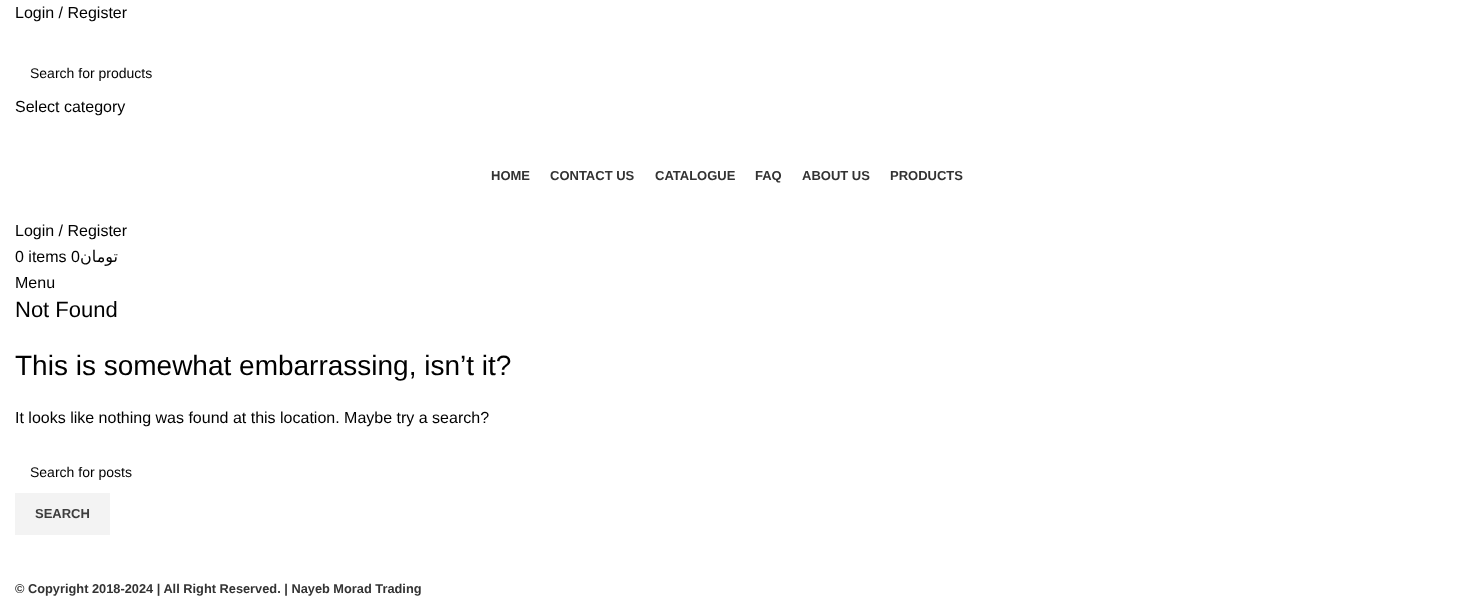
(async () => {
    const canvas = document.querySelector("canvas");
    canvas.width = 1463;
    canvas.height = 604;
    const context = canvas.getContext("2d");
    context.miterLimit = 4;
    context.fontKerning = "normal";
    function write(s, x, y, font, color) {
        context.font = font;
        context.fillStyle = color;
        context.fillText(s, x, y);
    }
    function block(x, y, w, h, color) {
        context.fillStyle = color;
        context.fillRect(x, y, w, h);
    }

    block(0, 0, 1463, 604, "rgb(255, 255, 255)");
    write("Login / Register", 15, 18, "16px Liberation Sans", "rgb(0, 0, 0)");
    write("Search for products", 30, 78, "14px Liberation Sans", "rgb(0, 0, 0)");
    write("Select category", 15, 112, "16px Liberation Sans", "rgb(0, 0, 0)");
    write("HOME", 491, 180, "bold 13px Liberation Sans", "rgb(51, 51, 51)");
    write("CONTACT US", 550, 180, "bold 13px Liberation Sans", "rgb(51, 51, 51)");
    write("CATALOGUE", 655, 180, "bold 13px Liberation Sans", "rgb(51, 51, 51)");
    write("FAQ", 755, 180, "bold 13px Liberation Sans", "rgb(51, 51, 51)");
    write("ABOUT US", 802, 180, "bold 13px Liberation Sans", "rgb(51, 51, 51)");
    write("PRODUCTS", 890, 180, "bold 13px Liberation Sans", "rgb(51, 51, 51)");
    write("Login / Register", 15, 236, "16px Liberation Sans", "rgb(0, 0, 0)");
    write("0 items 0", 15, 262, "16px Liberation Sans", "rgb(0, 0, 0)");
    context.direction = "rtl";
    write("تومان", 118, 262, "16px DejaVu Sans", "rgb(0, 0, 0)");
    context.direction = "ltr";
    write("Menu", 15, 288, "16px Liberation Sans", "rgb(0, 0, 0)");
    write("Not Found", 15, 317, "22px Liberation Sans", "rgb(0, 0, 0)");
    write("This is somewhat embarrassing, isn’t it?", 15, 375, "28px Liberation Sans", "rgb(0, 0, 0)");
    write("It looks like nothing was found at this location. Maybe try a search?", 15, 423, "16px Liberation Sans", "rgb(0, 0, 0)");
    write("Search for posts", 30, 477, "14px Liberation Sans", "rgb(0, 0, 0)");
    block(15, 493, 95, 42, "rgb(243, 243, 243)");
    write("SEARCH", 35, 518, "bold 13px Liberation Sans", "rgb(62, 62, 62)");
    write("© Copyright 2018-2024 | All Right Reserved. | Nayeb Morad Trading", 15, 593, "bold 12.8px Liberation Sans", "rgb(51, 51, 51)");
})();
